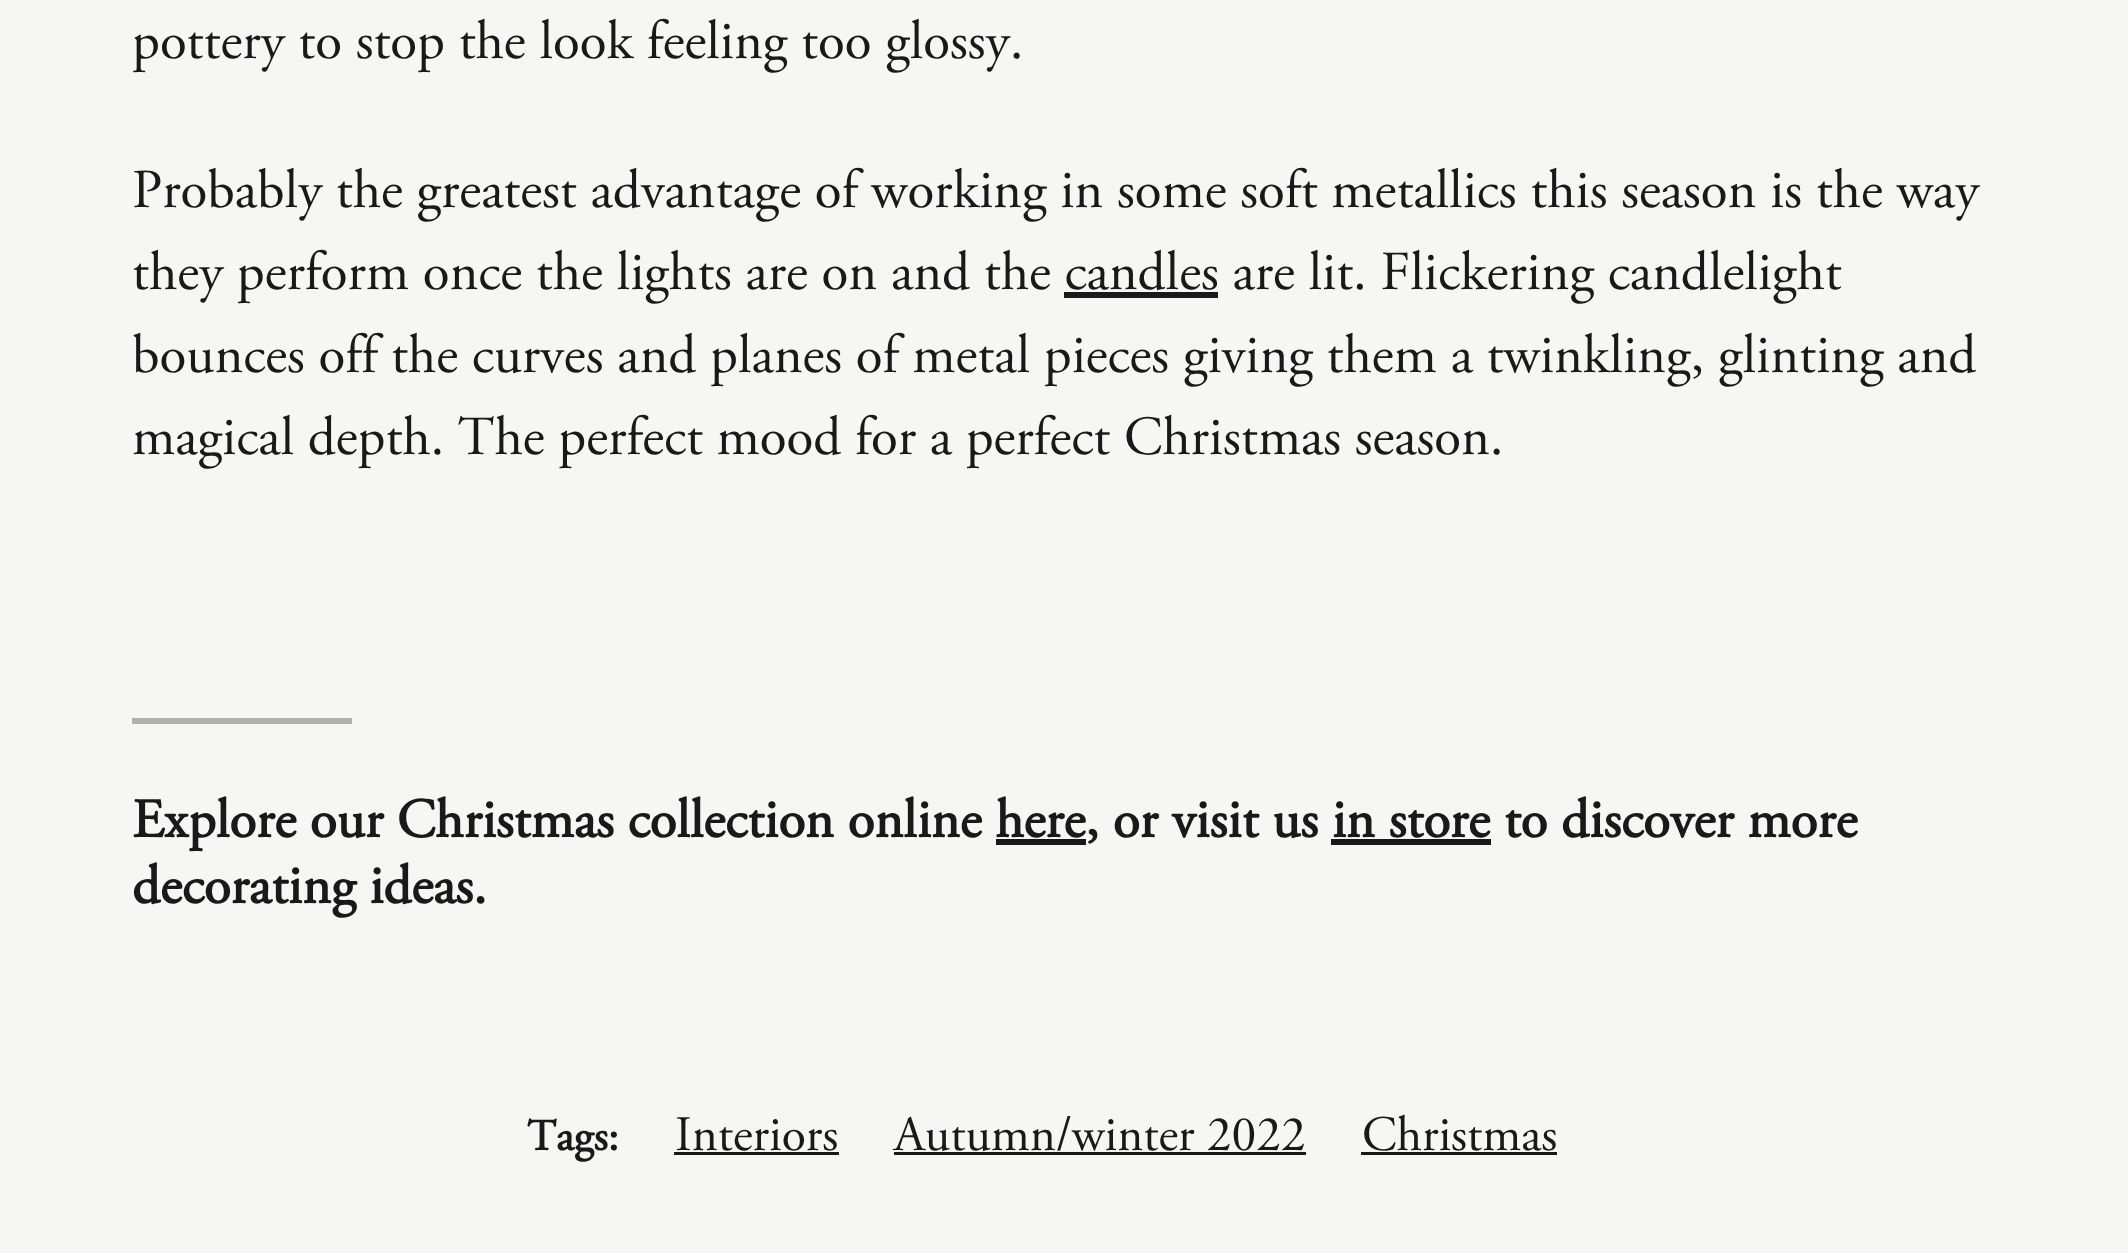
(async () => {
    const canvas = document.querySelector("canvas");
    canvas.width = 2128;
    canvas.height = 1253;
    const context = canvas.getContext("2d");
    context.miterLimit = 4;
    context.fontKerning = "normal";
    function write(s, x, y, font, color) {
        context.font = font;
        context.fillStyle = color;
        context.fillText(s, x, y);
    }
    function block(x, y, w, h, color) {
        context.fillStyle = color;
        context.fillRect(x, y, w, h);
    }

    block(0, 0, 2128, 1253, "rgb(246, 246, 244)");
    write("pottery to stop the look feeling too glossy.", 132, 58, "55px 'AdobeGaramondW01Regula'", "rgb(25, 25, 25)");
    write("Probably the greatest advantage of working in some soft metallics this season is the way", 132, 207, "55px 'AdobeGaramondW01Regula'", "rgb(25, 25, 25)");
    write("they perform once the lights are on and the candles are lit. Flickering candlelight", 132, 289, "55px 'AdobeGaramondW01Regula'", "rgb(25, 25, 25)");
    block(1064, 292, 154, 6, "rgb(25, 25, 25)");
    write("bounces off the curves and planes of metal pieces giving them a twinkling, glinting and", 132, 372, "55px 'AdobeGaramondW01Regula'", "rgb(25, 25, 25)");
    write("magical depth. The perfect mood for a perfect Christmas season.", 132, 454, "55px 'AdobeGaramondW01Regula'", "rgb(25, 25, 25)");
    block(132, 718, 220, 6, "rgb(178, 177, 174)");
    write("Explore our Christmas collection online here, or visit us in store to discover more", 132, 837, "bold 55px 'AdobeGaramondW01Regula'", "rgb(25, 25, 25)");
    block(996, 839, 90, 6, "rgb(25, 25, 25)");
    block(1331, 839, 160, 6, "rgb(25, 25, 25)");
    write("decorating ideas.", 132, 903, "bold 55px 'AdobeGaramondW01Regula'", "rgb(25, 25, 25)");
    write("Tags:", 527, 1150, "bold 44px 'AdobeGaramondW01Regula'", "rgb(25, 25, 25)");
    write("Interiors", 675, 1150, "49.5px 'AdobeGaramondW01Regula'", "rgb(25, 25, 25)");
    block(674, 1152, 165, 3, "rgb(25, 25, 25)");
    write("Autumn/winter 2022", 894, 1150, "49.5px 'AdobeGaramondW01Regula'", "rgb(25, 25, 25)");
    block(894, 1152, 412, 3, "rgb(25, 25, 25)");
    write("Christmas", 1362, 1150, "49.5px 'AdobeGaramondW01Regula'", "rgb(25, 25, 25)");
    block(1361, 1152, 196, 3, "rgb(25, 25, 25)");
})();
